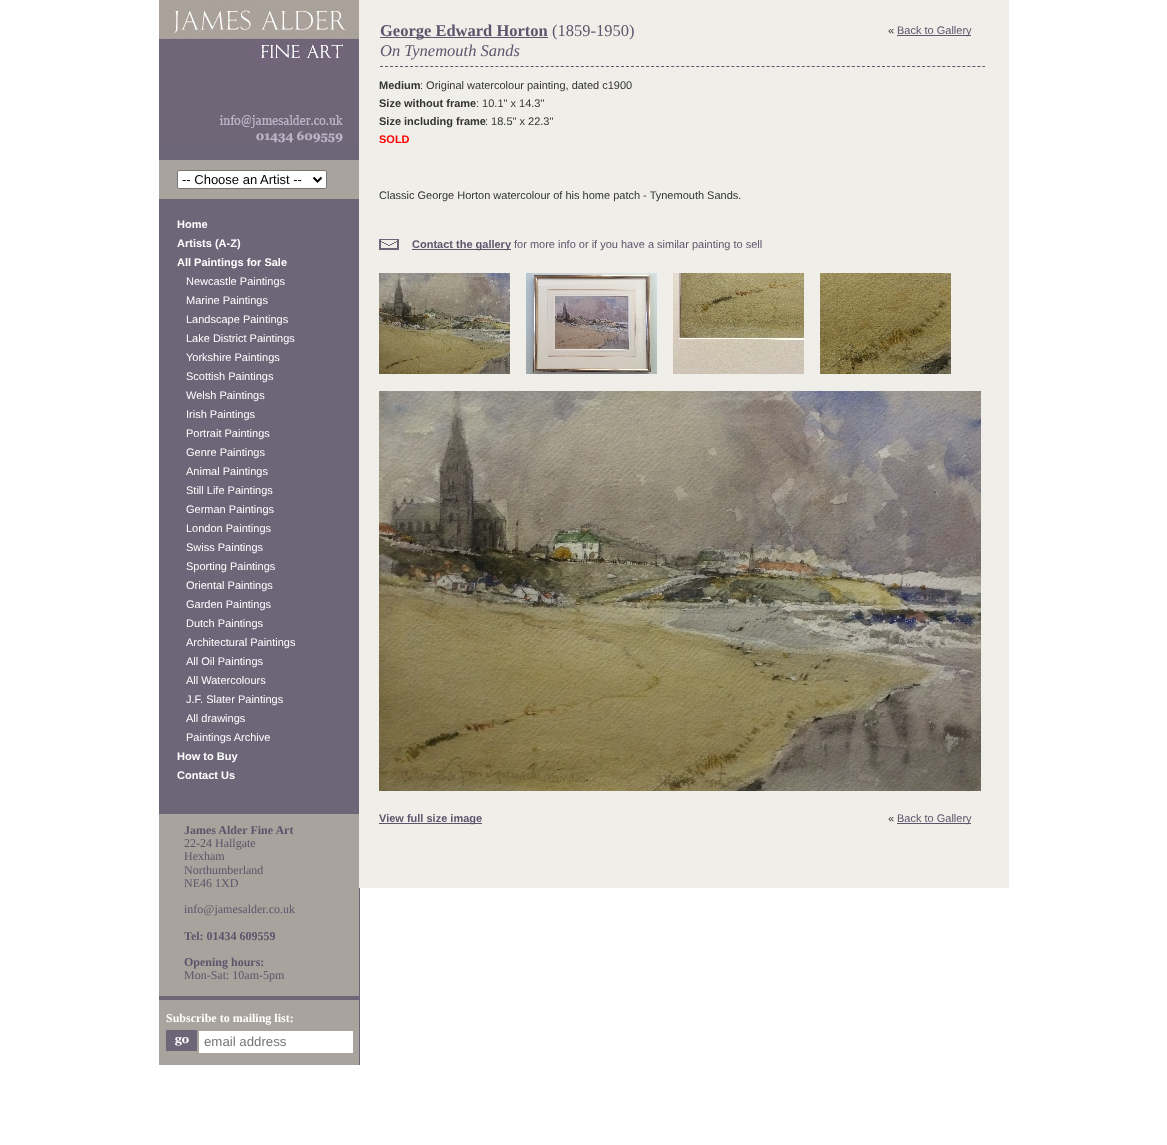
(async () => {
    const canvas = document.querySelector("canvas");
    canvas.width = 1167;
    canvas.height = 1145;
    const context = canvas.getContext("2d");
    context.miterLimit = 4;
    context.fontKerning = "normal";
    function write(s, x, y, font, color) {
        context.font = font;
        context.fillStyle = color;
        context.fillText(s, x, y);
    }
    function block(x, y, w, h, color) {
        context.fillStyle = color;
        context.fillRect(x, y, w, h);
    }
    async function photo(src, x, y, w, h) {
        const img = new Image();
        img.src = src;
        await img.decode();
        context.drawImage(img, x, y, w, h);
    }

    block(0, 0, 1167, 1145, "rgb(255, 255, 255)");
    block(159, 144, 201, 921, "rgb(108, 102, 120)");
    await photo("media/1.png", 159, 0, 200, 144);
    block(159, 160, 200, 39, "rgb(168, 163, 156)");
    context.fillStyle = "rgb(255, 255, 255)";
    context.beginPath();
    context.roundRect(177.5, 170.5, 149, 18, 1.5);
    context.fill();
    context.strokeStyle = "rgb(118, 118, 118)";
    context.stroke();
    context.beginPath();
    context.moveTo(313.5, 177.5);
    context.lineTo(317.5, 181.5);
    context.lineTo(321.5, 177.5);
    context.strokeStyle = "rgb(0, 0, 0)";
    context.lineWidth = 2;
    context.stroke();
    write("-- Choose an Artist --", 182, 184, "13px Liberation Sans", "rgb(0, 0, 0)");
    write("Home", 177, 228, "bold 11px Liberation Sans", "rgb(255, 255, 255)");
    write("Artists (A-Z)", 177, 247, "bold 11px Liberation Sans", "rgb(255, 255, 255)");
    write("All Paintings for Sale", 177, 266, "bold 11px Liberation Sans", "rgb(255, 255, 255)");
    write("Newcastle Paintings", 186, 285, "11px Liberation Sans", "rgb(255, 255, 255)");
    write("Marine Paintings", 186, 304, "11px Liberation Sans", "rgb(255, 255, 255)");
    write("Landscape Paintings", 186, 323, "11px Liberation Sans", "rgb(255, 255, 255)");
    write("Lake District Paintings", 186, 342, "11px Liberation Sans", "rgb(255, 255, 255)");
    write("Yorkshire Paintings", 186, 361, "11px Liberation Sans", "rgb(255, 255, 255)");
    write("Scottish Paintings", 186, 380, "11px Liberation Sans", "rgb(255, 255, 255)");
    write("Welsh Paintings", 186, 399, "11px Liberation Sans", "rgb(255, 255, 255)");
    write("Irish Paintings", 186, 418, "11px Liberation Sans", "rgb(255, 255, 255)");
    write("Portrait Paintings", 186, 437, "11px Liberation Sans", "rgb(255, 255, 255)");
    write("Genre Paintings", 186, 456, "11px Liberation Sans", "rgb(255, 255, 255)");
    write("Animal Paintings", 186, 475, "11px Liberation Sans", "rgb(255, 255, 255)");
    write("Still Life Paintings", 186, 494, "11px Liberation Sans", "rgb(255, 255, 255)");
    write("German Paintings", 186, 513, "11px Liberation Sans", "rgb(255, 255, 255)");
    write("London Paintings", 186, 532, "11px Liberation Sans", "rgb(255, 255, 255)");
    write("Swiss Paintings", 186, 551, "11px Liberation Sans", "rgb(255, 255, 255)");
    write("Sporting Paintings", 186, 570, "11px Liberation Sans", "rgb(255, 255, 255)");
    write("Oriental Paintings", 186, 589, "11px Liberation Sans", "rgb(255, 255, 255)");
    write("Garden Paintings", 186, 608, "11px Liberation Sans", "rgb(255, 255, 255)");
    write("Dutch Paintings", 186, 627, "11px Liberation Sans", "rgb(255, 255, 255)");
    write("Architectural Paintings", 186, 646, "11px Liberation Sans", "rgb(255, 255, 255)");
    write("All Oil Paintings", 186, 665, "11px Liberation Sans", "rgb(255, 255, 255)");
    write("All Watercolours", 186, 684, "11px Liberation Sans", "rgb(255, 255, 255)");
    write("J.F. Slater Paintings", 186, 703, "11px Liberation Sans", "rgb(255, 255, 255)");
    write("All drawings", 186, 722, "11px Liberation Sans", "rgb(255, 255, 255)");
    write("Paintings Archive", 186, 741, "11px Liberation Sans", "rgb(255, 255, 255)");
    write("How to Buy", 177, 760, "bold 11px Liberation Sans", "rgb(255, 255, 255)");
    write("Contact Us", 177, 779, "bold 11px Liberation Sans", "rgb(255, 255, 255)");
    block(159, 814, 200, 182, "rgb(168, 163, 156)");
    write("James Alder Fine Art", 184, 834, "bold 12px Liberation Serif", "rgb(93, 85, 108)");
    write("22-24 Hallgate", 184, 847, "12px Liberation Serif", "rgb(93, 85, 108)");
    write("Hexham", 184, 860, "12px Liberation Serif", "rgb(93, 85, 108)");
    write("Northumberland", 184, 874, "12px Liberation Serif", "rgb(93, 85, 108)");
    write("NE46 1XD", 184, 887, "12px Liberation Serif", "rgb(93, 85, 108)");
    write("info@jamesalder.co.uk", 184, 913, "12px Liberation Serif", "rgb(93, 85, 108)");
    write("Tel: 01434 609559", 184, 940, "bold 12px Liberation Serif", "rgb(93, 85, 108)");
    write("Opening hours:", 184, 966, "bold 12px Liberation Serif", "rgb(93, 85, 108)");
    write("Mon-Sat: 10am-5pm", 184, 979, "12px Liberation Serif", "rgb(93, 85, 108)");
    block(159, 1000, 200, 65, "rgb(168, 163, 156)");
    write("Subscribe to mailing list:", 166, 1022, "bold 12px Liberation Serif", "rgb(255, 255, 255)");
    await photo("media/2.png", 166, 1030, 31, 21);
    block(199, 1031, 154, 22, "rgb(255, 255, 255)");
    write("email address", 204, 1046, "13.25px Liberation Sans", "rgb(117, 117, 117)");
    block(359, 0, 650, 888, "rgb(239, 238, 233)");
    context.beginPath();
    context.moveTo(380, 66.5);
    context.lineTo(985, 66.5);
    context.strokeStyle = "rgb(93, 85, 108)";
    context.lineWidth = 1;
    context.setLineDash([3, 2.02]);
    context.stroke();
    block(380, 37, 168, 1, "rgb(93, 85, 108)");
    write("George Edward Horton", 380, 36, "bold 16.5px Liberation Serif", "rgb(93, 85, 108)");
    write("(1859-1950)", 552, 36, "16.5px Liberation Serif", "rgb(93, 85, 108)");
    write("On Tynemouth Sands", 380, 56, "italic 16.5px Liberation Serif", "rgb(93, 85, 108)");
    write("«", 888, 34, "11px Liberation Sans", "rgb(51, 51, 51)");
    block(897, 35, 74, 1, "rgb(93, 85, 108)");
    write("Back to Gallery", 897, 34, "11px Liberation Sans", "rgb(93, 85, 108)");
    write("Medium", 379, 89, "bold 11px Liberation Sans", "rgb(51, 51, 51)");
    write(": Original watercolour painting, dated c1900", 420, 89, "11px Liberation Sans", "rgb(51, 51, 51)");
    write("Size without frame", 379, 107, "bold 11px Liberation Sans", "rgb(51, 51, 51)");
    write(": 10.1\" x 14.3\"", 476, 107, "11px Liberation Sans", "rgb(51, 51, 51)");
    write("Size including frame", 379, 125, "bold 11px Liberation Sans", "rgb(51, 51, 51)");
    write(": 18.5\" x 22.3\"", 485, 125, "11px Liberation Sans", "rgb(51, 51, 51)");
    write("SOLD", 379, 143, "bold 11px Liberation Sans", "rgb(255, 0, 0)");
    write("Classic George Horton watercolour of his home patch - Tynemouth Sands.", 379, 199, "11px Liberation Sans", "rgb(51, 51, 51)");
    await photo("media/3.png", 379, 239, 20, 11);
    block(412, 249, 99, 1, "rgb(93, 85, 108)");
    write("Contact the gallery", 412, 248, "bold 11px Liberation Sans", "rgb(93, 85, 108)");
    write("for more info or if you have a similar painting to sell", 514, 248, "11px Liberation Sans", "rgb(93, 85, 108)");
    await photo("media/4.png", 379, 273, 131, 101);
    await photo("media/5.png", 526, 273, 131, 101);
    await photo("media/6.png", 673, 273, 131, 101);
    await photo("media/7.png", 820, 273, 131, 101);
    await photo("media/8.png", 379, 391, 602, 400);
    block(379, 823, 103, 1, "rgb(93, 85, 108)");
    write("View full size image", 379, 822, "bold 11px Liberation Sans", "rgb(93, 85, 108)");
    write("«", 888, 822, "11px Liberation Sans", "rgb(51, 51, 51)");
    block(897, 823, 74, 1, "rgb(93, 85, 108)");
    write("Back to Gallery", 897, 822, "11px Liberation Sans", "rgb(93, 85, 108)");
})();
